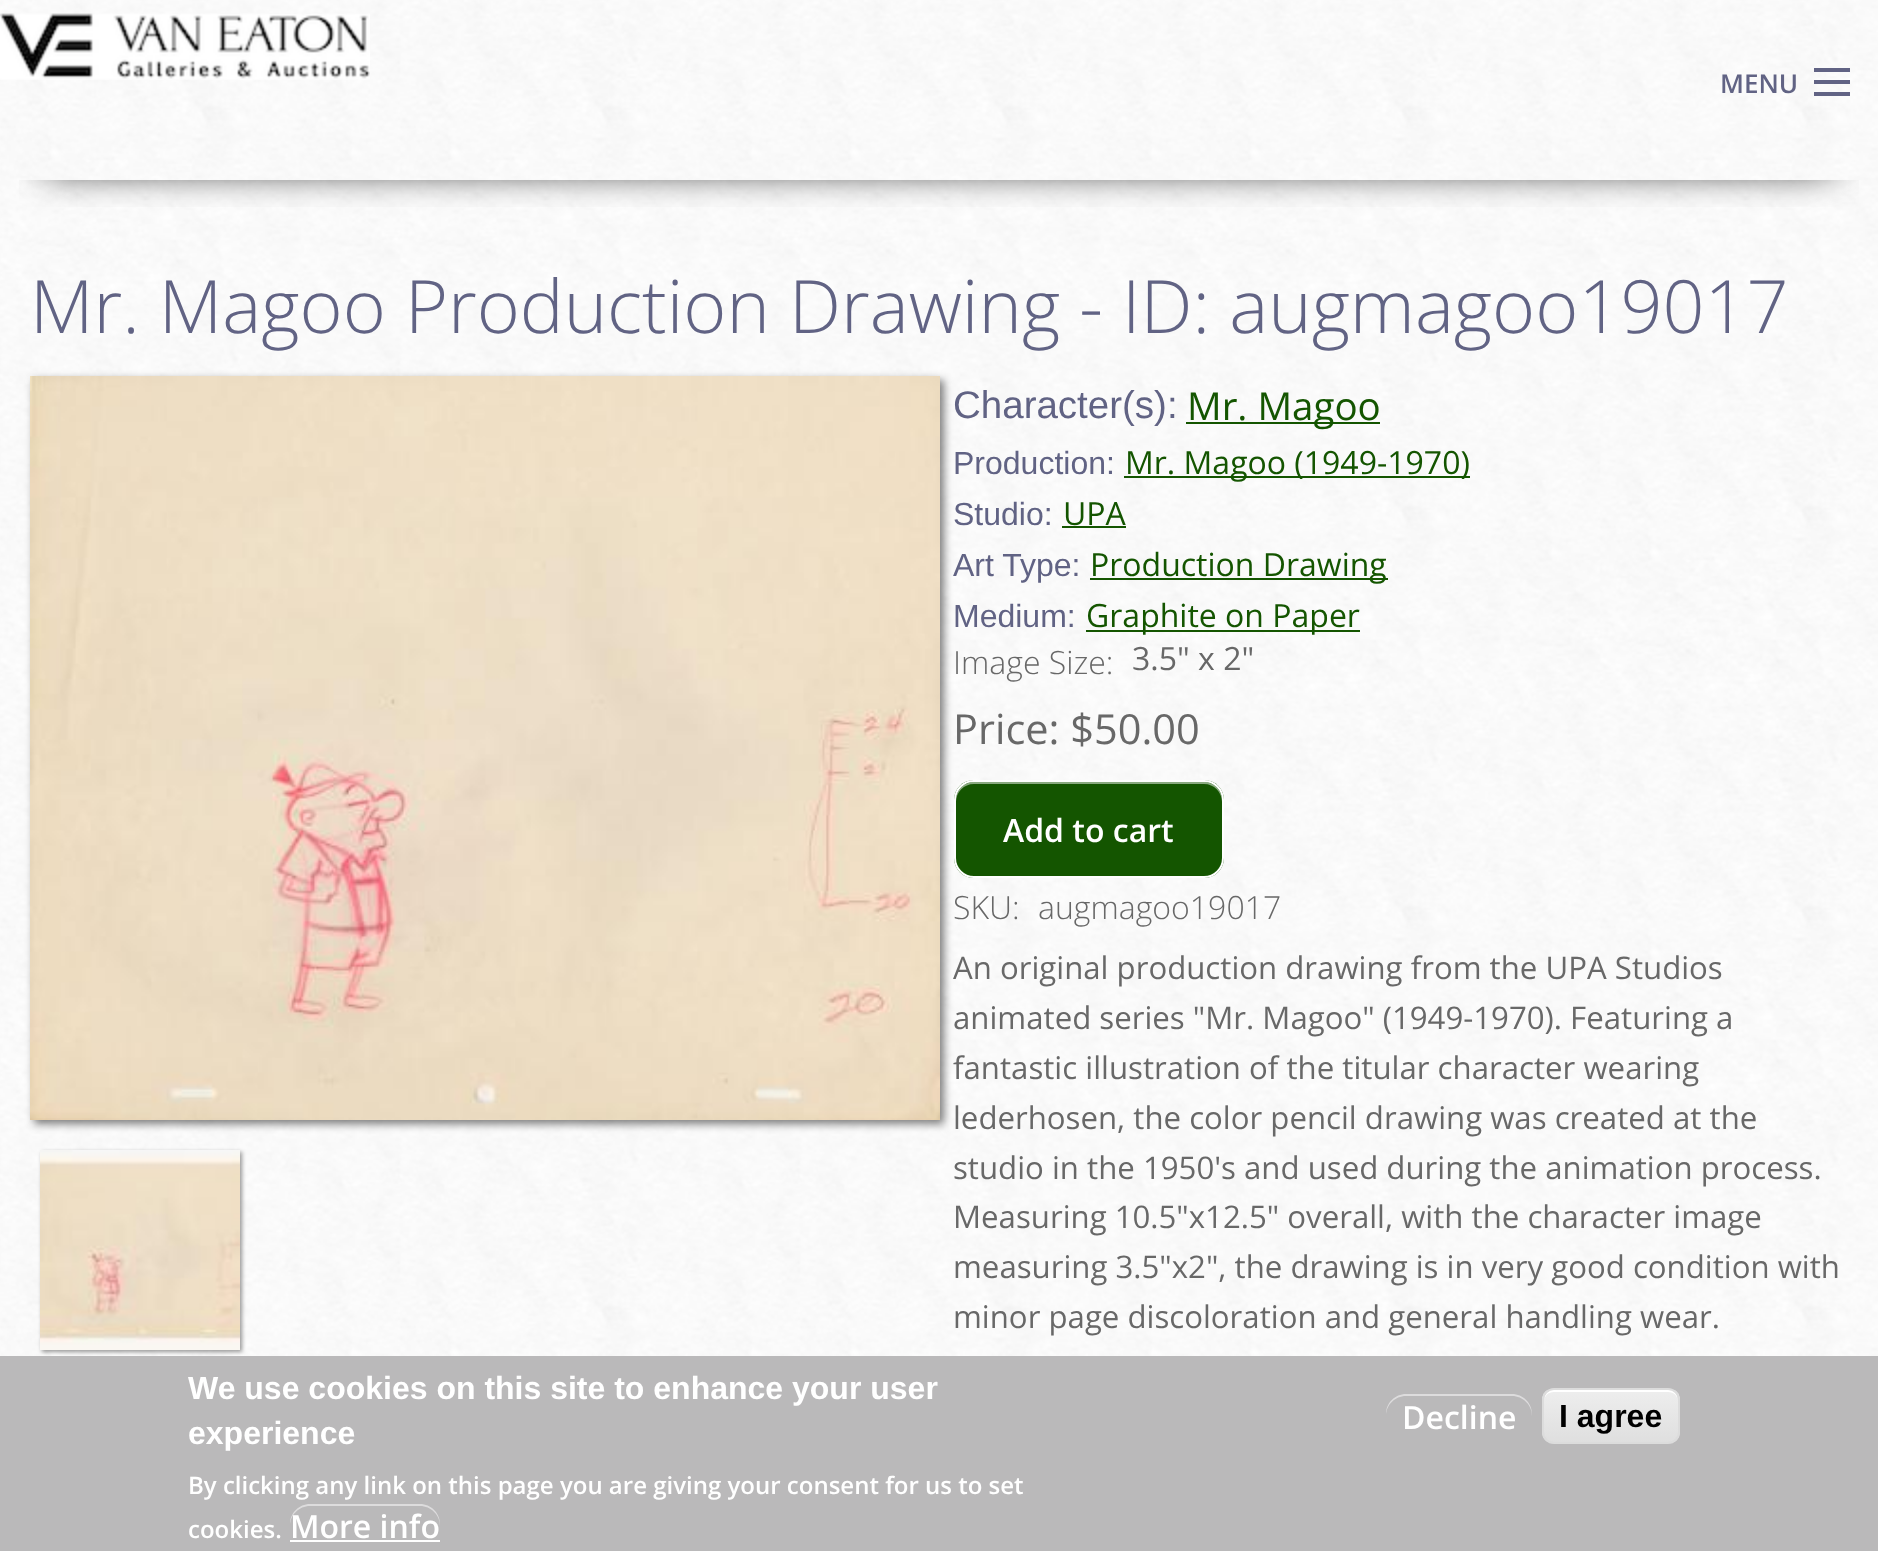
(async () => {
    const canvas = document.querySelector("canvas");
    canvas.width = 1878;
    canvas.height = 1551;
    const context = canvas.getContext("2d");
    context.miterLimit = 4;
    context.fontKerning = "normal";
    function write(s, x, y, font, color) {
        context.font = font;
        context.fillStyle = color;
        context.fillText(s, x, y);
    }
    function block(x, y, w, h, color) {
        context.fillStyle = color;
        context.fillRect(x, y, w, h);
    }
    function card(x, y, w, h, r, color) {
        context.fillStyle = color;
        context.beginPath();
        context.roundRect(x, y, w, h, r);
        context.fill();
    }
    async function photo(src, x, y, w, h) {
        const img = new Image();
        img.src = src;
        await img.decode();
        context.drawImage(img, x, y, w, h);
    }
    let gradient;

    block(0, 0, 1878, 1551, "rgb(255, 255, 255)");
    await photo("media/1.png", 0, 0, 1878, 1356);
    context.save();
    context.beginPath();
    context.rect(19, 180, 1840, 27);
    context.clip();
    context.fillStyle = "rgb(0, 0, 0)";
    context.filter = "blur(19px)";
    context.beginPath();
    context.rect(46, 80, 1786, 88);
    context.fill();
    context.filter = "none";
    context.restore();
    await photo("media/2.png", 0, 13, 370, 67);
    block(1814, 92, 36, 4, "rgb(97, 99, 132)");
    block(1814, 80, 36, 4, "rgb(97, 99, 132)");
    block(1814, 68, 36, 4, "rgb(97, 99, 132)");
    write("MENU", 1720, 93, "600 26px Open Sans", "rgb(97, 99, 132)");
    write("Mr. Magoo Production Drawing - ID: augmagoo19017", 30, 333, "300 73.6px Open Sans", "rgb(97, 99, 132)");
    context.fillStyle = "rgba(0, 0, 0, 0.5)";
    context.filter = "blur(4px)";
    context.beginPath();
    context.rect(34, 380, 910, 744);
    context.fill();
    context.filter = "none";
    await photo("media/3.png", 30, 376, 910, 744);
    context.fillStyle = "rgba(0, 0, 0, 0.4)";
    context.filter = "blur(2px)";
    context.beginPath();
    context.rect(42, 1152, 200, 200);
    context.fill();
    context.filter = "none";
    await photo("media/4.png", 40, 1150, 200, 200);
    write("Character(s):", 953, 418, "38.5px Liberation Sans", "rgb(97, 99, 132)");
    block(1186, 422, 194, 2, "rgb(20, 85, 0)");
    write("Mr. Magoo", 1187, 420, "38.5px Open Sans", "rgb(20, 85, 0)");
    write("Production:", 953, 474, "32px Liberation Sans", "rgb(97, 99, 132)");
    block(1124, 476, 346, 2, "rgb(20, 85, 0)");
    write("Mr. Magoo (1949-1970)", 1125, 474, "32px Open Sans", "rgb(20, 85, 0)");
    write("Studio:", 953, 525, "32px Liberation Sans", "rgb(97, 99, 132)");
    write("UPA", 1063, 525, "32px Open Sans", "rgb(20, 85, 0)");
    block(1062, 526, 64, 2, "rgb(20, 85, 0)");
    write("Art Type:", 953, 576, "32px Liberation Sans", "rgb(97, 99, 132)");
    block(1090, 578, 298, 2, "rgb(20, 85, 0)");
    write("Production Drawing", 1090, 576, "32px Open Sans", "rgb(20, 85, 0)");
    write("Medium:", 953, 627, "32px Liberation Sans", "rgb(97, 99, 132)");
    block(1086, 630, 274, 2, "rgb(20, 85, 0)");
    write("Graphite on Paper", 1086, 627, "32px Open Sans", "rgb(20, 85, 0)");
    write("Image Size:", 953, 674, "300 32px Open Sans", "rgb(104, 104, 104)");
    write("3.5\" x 2\"", 1132, 670, "32px Open Sans", "rgb(104, 104, 104)");
    write("Price: $50.00", 953, 744, "41.5px Open Sans", "rgb(104, 104, 104)");
    card(954, 780, 270, 98, 20, "rgb(20, 85, 0)");
    context.fillStyle = "rgb(138, 170, 128)";
    context.beginPath();
    context.moveTo(974, 784);
    context.lineTo(1204, 784);
    context.bezierCurveTo(1214, 784, 1222, 792, 1222, 802);
    context.lineTo(1222, 800);
    context.bezierCurveTo(1222, 790, 1214, 782, 1204, 782);
    context.lineTo(974, 782);
    context.bezierCurveTo(964, 782, 956, 790, 956, 800);
    context.lineTo(956, 802);
    context.bezierCurveTo(956, 792, 964, 784, 974, 784);
    context.closePath();
    context.fill();
    context.beginPath();
    context.roundRect(955, 781, 268, 96, 19);
    context.strokeStyle = "rgb(255, 255, 255)";
    context.lineWidth = 2;
    context.stroke();
    write("Add to cart", 1003, 842, "600 32px Open Sans", "rgb(255, 255, 255)");
    write("SKU:", 953, 919, "300 32px Open Sans", "rgb(104, 104, 104)");
    write("augmagoo19017", 1038, 919, "300 32px Open Sans", "rgb(104, 104, 104)");
    write("An original production drawing from the UPA Studios", 953, 979, "31.2px Open Sans", "rgb(104, 104, 104)");
    write("animated series \"Mr. Magoo\" (1949-1970). Featuring a", 953, 1029, "31.2px Open Sans", "rgb(104, 104, 104)");
    write("fantastic illustration of the titular character wearing", 953, 1079, "31.2px Open Sans", "rgb(104, 104, 104)");
    write("lederhosen, the color pencil drawing was created at the", 953, 1129, "31.2px Open Sans", "rgb(104, 104, 104)");
    write("studio in the 1950's and used during the animation process.", 953, 1179, "31.2px Open Sans", "rgb(104, 104, 104)");
    write("Measuring 10.5\"x12.5\" overall, with the character image", 953, 1228, "31.2px Open Sans", "rgb(104, 104, 104)");
    write("measuring 3.5\"x2\", the drawing is in very good condition with", 953, 1278, "31.2px Open Sans", "rgb(104, 104, 104)");
    write("minor page discoloration and general handling wear.", 953, 1328, "31.2px Open Sans", "rgb(104, 104, 104)");
    block(0, 1356, 1878, 195, "rgb(186, 185, 186)");
    write("We use cookies on this site to enhance your user", 188, 1399, "bold 32px Liberation Sans", "rgb(255, 255, 255)");
    write("experience", 188, 1444, "bold 32px Liberation Sans", "rgb(255, 255, 255)");
    write("By clicking any link on this page you are giving your consent for us to set", 188, 1494, "600 24px Open Sans", "rgb(255, 255, 255)");
    write("cookies.", 188, 1538, "600 24px Open Sans", "rgb(255, 255, 255)");
    context.fillStyle = "rgb(221, 220, 221)";
    context.beginPath();
    context.moveTo(310, 1506);
    context.lineTo(420, 1506);
    context.bezierCurveTo(431, 1506, 440, 1515, 440, 1526);
    context.lineTo(440, 1524);
    context.bezierCurveTo(440, 1513, 431, 1504, 420, 1504);
    context.lineTo(310, 1504);
    context.bezierCurveTo(299, 1504, 290, 1513, 290, 1524);
    context.lineTo(290, 1526);
    context.bezierCurveTo(290, 1515, 299, 1506, 310, 1506);
    context.closePath();
    context.fill();
    write("More info", 290, 1538, "600 32px Open Sans", "rgb(255, 255, 255)");
    block(290, 1540, 150, 2, "rgb(255, 255, 255)");
    context.fillStyle = "rgb(221, 220, 221)";
    context.beginPath();
    context.moveTo(1406, 1396);
    context.lineTo(1512, 1396);
    context.bezierCurveTo(1523, 1396, 1532, 1405, 1532, 1416);
    context.lineTo(1532, 1414);
    context.bezierCurveTo(1532, 1403, 1523, 1394, 1512, 1394);
    context.lineTo(1406, 1394);
    context.bezierCurveTo(1395, 1394, 1386, 1403, 1386, 1414);
    context.lineTo(1386, 1416);
    context.bezierCurveTo(1386, 1405, 1395, 1396, 1406, 1396);
    context.closePath();
    context.fill();
    write("Decline", 1402, 1429, "600 32px Open Sans", "rgb(255, 255, 255)");
    context.save();
    context.beginPath();
    context.roundRect(1542, 1388, 138, 56, 12);
    context.clip();
    gradient = context.createLinearGradient(1611, 1390, 1611, 1442);
    gradient.addColorStop(0.05, "rgb(237, 237, 237)");
    gradient.addColorStop(1, "rgb(223, 223, 223)");
    context.fillStyle = gradient;
    context.fillRect(1542, 1390, 138, 52);
    context.restore();
    context.beginPath();
    context.moveTo(1554, 1392);
    context.lineTo(1668, 1392);
    context.bezierCurveTo(1674, 1392, 1678, 1396, 1678, 1402);
    context.bezierCurveTo(1678, 1385, 1661, 1390, 1649, 1390);
    context.lineTo(1573, 1390);
    context.bezierCurveTo(1561, 1390, 1544, 1385, 1544, 1402);
    context.bezierCurveTo(1544, 1396, 1548, 1392, 1554, 1392);
    context.closePath();
    context.fill();
    context.beginPath();
    context.roundRect(1543, 1389, 136, 54, 11);
    context.strokeStyle = "rgb(220, 220, 220)";
    context.stroke();
    write("I agree", 1559, 1427, "bold 32px Liberation Sans", "rgb(0, 0, 0)");
})();
